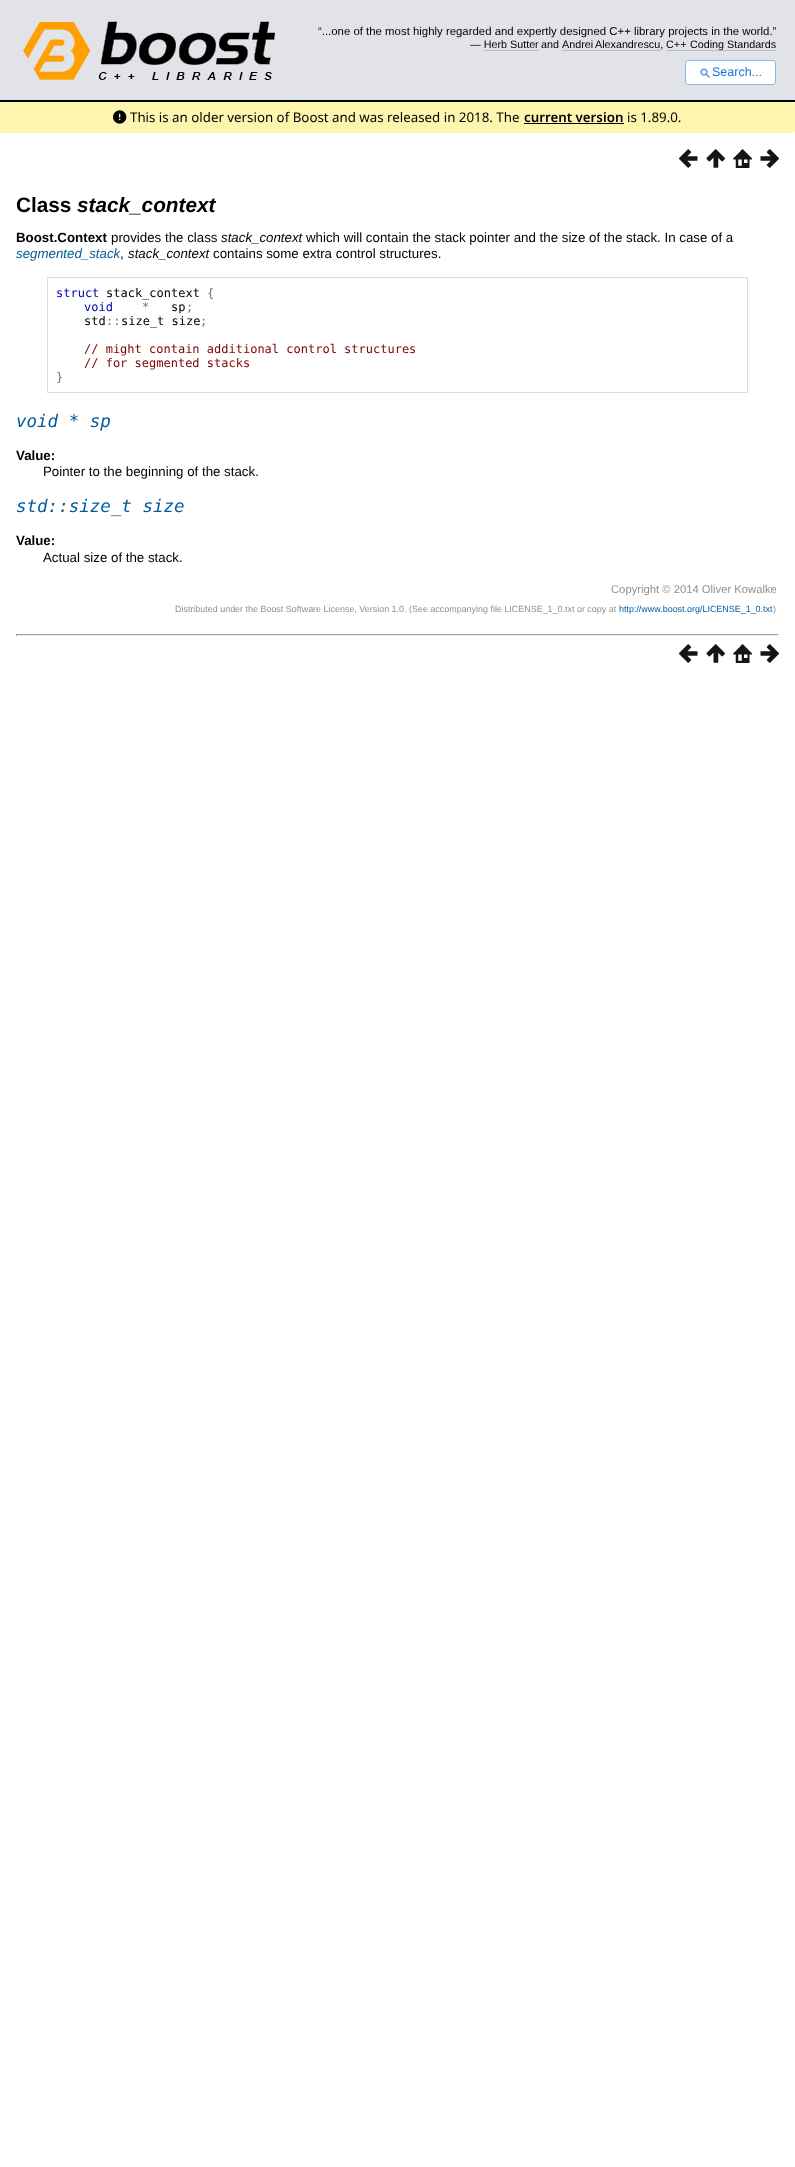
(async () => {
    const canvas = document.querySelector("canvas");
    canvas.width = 795;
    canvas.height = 2167;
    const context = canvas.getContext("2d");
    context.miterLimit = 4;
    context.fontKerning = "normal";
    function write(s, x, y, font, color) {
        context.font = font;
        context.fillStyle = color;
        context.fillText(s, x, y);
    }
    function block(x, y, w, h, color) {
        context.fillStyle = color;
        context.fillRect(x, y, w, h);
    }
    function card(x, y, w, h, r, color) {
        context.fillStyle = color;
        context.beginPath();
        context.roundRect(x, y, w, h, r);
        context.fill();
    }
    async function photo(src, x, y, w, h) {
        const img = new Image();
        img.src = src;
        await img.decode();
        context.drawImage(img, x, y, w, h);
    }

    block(0, 0, 795, 2167, "rgb(255, 255, 255)");
    block(0, 0, 795, 100, "rgb(225, 227, 232)");
    block(0, 100, 795, 2, "rgb(0, 0, 0)");
    await photo("media/1.png", 23, 21, 252, 59);
    write("“...one of the most highly regarded and expertly designed C++ library projects in the world.”", 318, 35, "11.4px Liberation Sans", "rgb(0, 0, 0)");
    write("— Herb Sutter", 470, 48, "10.75px Liberation Sans", "rgb(0, 0, 0)");
    write("and", 541, 48, "10.75px Liberation Sans", "rgb(0, 0, 0)");
    write("Andrei", 562, 48, "10.75px Liberation Sans", "rgb(0, 0, 0)");
    write("Alexandrescu, C++", 595, 48, "10.75px Liberation Sans", "rgb(0, 0, 0)");
    block(562, 50, 99, 1, "rgb(187, 187, 187)");
    block(667, 50, 109, 1, "rgb(187, 187, 187)");
    write("Coding Standards", 690, 48, "10.75px Liberation Sans", "rgb(0, 0, 0)");
    block(484, 50, 55, 1, "rgb(187, 187, 187)");
    card(685, 60, 91, 25, 3, "rgb(255, 255, 255)");
    context.beginPath();
    context.roundRect(685.5, 60.5, 90, 24, 2.5);
    context.strokeStyle = "rgba(25, 118, 210, 0.5)";
    context.stroke();
    await photo("media/2.png", 700, 68, 10, 10);
    write("Search...", 712, 76, "12.5px Liberation Sans", "rgb(25, 118, 210)");
    card(0, 102, 795, 31, 2, "rgb(254, 245, 174)");
    await photo("media/3.png", 113, 110, 14, 14);
    write("This is an older version of Boost and was released in 2018. The", 130, 122, "13.3px Noto Sans", "rgb(0, 0, 0)");
    write("current version", 524, 122, "600 13.3px Noto Sans", "rgb(0, 0, 0)");
    block(524, 123, 100, 1, "rgb(0, 0, 0)");
    write("is 1.89.0.", 627, 122, "13.3px Noto Sans", "rgb(0, 0, 0)");
    await photo("media/4.png", 679, 149, 19, 19);
    await photo("media/5.png", 706, 149, 19, 19);
    await photo("media/6.png", 733, 149, 19, 19);
    await photo("media/7.png", 760, 149, 19, 19);
    write("Class", 16, 212, "bold 20.75px Liberation Sans", "rgb(0, 0, 0)");
    write("stack_context", 77, 212, "italic bold 20.75px Liberation Sans", "rgb(0, 0, 0)");
    write("Boost.Context", 16, 242, "bold 13.3px Liberation Sans", "rgb(0, 0, 0)");
    write("provides the class", 111, 242, "13.3px Liberation Sans", "rgb(0, 0, 0)");
    write("stack_context", 221, 242, "italic 13.3px Liberation Sans", "rgb(0, 0, 0)");
    write("which will contain the stack pointer and the size of the stack. In case of a", 306, 242, "13.3px Liberation Sans", "rgb(0, 0, 0)");
    write("segmented_stack", 16, 258, "italic 13.3px Liberation Sans", "rgb(0, 90, 156)");
    write("stack_context", 128, 258, "italic 13.3px Liberation Sans", "rgb(0, 0, 0)");
    write("contains some extra control structures.", 213, 258, "13.3px Liberation Sans", "rgb(0, 0, 0)");
    write(",", 120, 258, "13.3px Liberation Sans", "rgb(0, 0, 0)");
    context.strokeStyle = "rgb(220, 220, 220)";
    context.strokeRect(47.5, 277.5, 700, 115);
    write("struct", 56, 297, "12px DejaVu Sans Mono", "rgb(0, 0, 170)");
    write("stack_context", 106, 297, "12px DejaVu Sans Mono", "rgb(0, 0, 0)");
    write("{", 207, 297, "12px DejaVu Sans Mono", "rgb(112, 112, 112)");
    write("void", 84, 311, "12px DejaVu Sans Mono", "rgb(0, 0, 170)");
    write("*", 142, 311, "12px DejaVu Sans Mono", "rgb(112, 112, 112)");
    write("sp", 171, 311, "12px DejaVu Sans Mono", "rgb(0, 0, 0)");
    write(";", 186, 311, "12px DejaVu Sans Mono", "rgb(112, 112, 112)");
    write("std", 84, 325, "12px DejaVu Sans Mono", "rgb(0, 0, 0)");
    write("::", 106, 325, "12px DejaVu Sans Mono", "rgb(112, 112, 112)");
    write("size_t size", 121, 325, "12px DejaVu Sans Mono", "rgb(0, 0, 0)");
    write(";", 200, 325, "12px DejaVu Sans Mono", "rgb(112, 112, 112)");
    write("// might contain additional control structures", 84, 353, "12px DejaVu Sans Mono", "rgb(128, 0, 0)");
    write("// for segmented stacks", 84, 367, "12px DejaVu Sans Mono", "rgb(128, 0, 0)");
    write("}", 56, 381, "12px DejaVu Sans Mono", "rgb(112, 112, 112)");
    write("void * sp", 16, 427, "italic 17.5px DejaVu Sans Mono", "rgb(0, 90, 156)");
    write("Value:", 16, 460, "bold 13.3px Liberation Sans", "rgb(0, 0, 0)");
    write("Pointer to the beginning of the stack.", 43, 476, "13.3px Liberation Sans", "rgb(0, 0, 0)");
    write("std::size_t size", 16, 512, "italic 17.5px DejaVu Sans Mono", "rgb(0, 90, 156)");
    write("Value:", 16, 545, "bold 13.3px Liberation Sans", "rgb(0, 0, 0)");
    write("Actual size of the stack.", 43, 562, "13.3px Liberation Sans", "rgb(0, 0, 0)");
    write("Copyright © 2014 Oliver Kowalke", 611, 593, "11.25px Liberation Sans", "rgb(143, 143, 143)");
    write("Distributed under the Boost Software License, Version 1.0. (See accompanying file LICENSE_1_0.txt or copy at", 175, 612, "8.95px Liberation Sans", "rgb(143, 143, 143)");
    write("http://www.boost.org/LICENSE_1_0.txt", 619, 612, "8.95px Liberation Sans", "rgb(0, 90, 156)");
    write(")", 773, 612, "8.95px Liberation Sans", "rgb(143, 143, 143)");
    block(16, 634, 763, 1, "rgb(159, 159, 159)");
    block(778, 634, 1, 2, "rgb(238, 238, 238)");
    block(16, 635, 763, 1, "rgb(238, 238, 238)");
    block(16, 634, 1, 2, "rgb(159, 159, 159)");
    await photo("media/4.png", 679, 644, 19, 19);
    await photo("media/5.png", 706, 644, 19, 19);
    await photo("media/6.png", 733, 644, 19, 19);
    await photo("media/7.png", 760, 644, 19, 19);
})();
